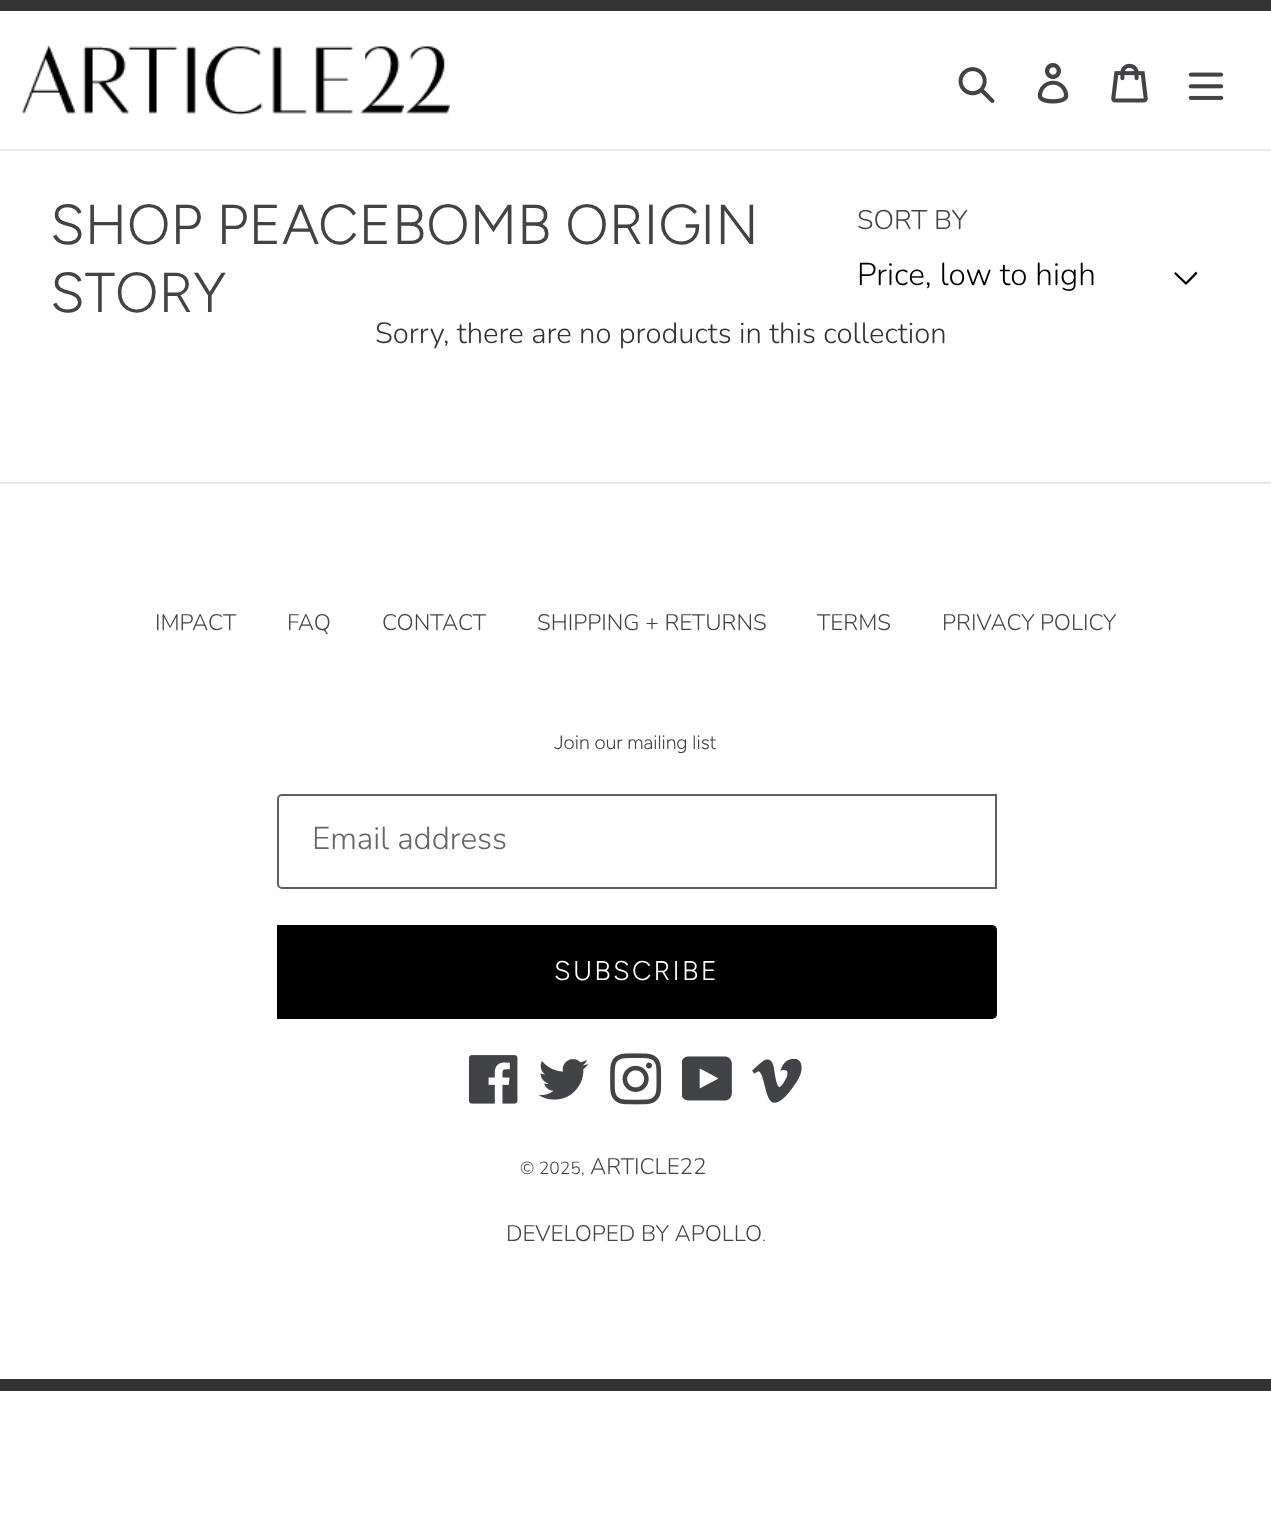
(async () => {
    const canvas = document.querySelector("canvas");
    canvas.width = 1271;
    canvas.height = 1521;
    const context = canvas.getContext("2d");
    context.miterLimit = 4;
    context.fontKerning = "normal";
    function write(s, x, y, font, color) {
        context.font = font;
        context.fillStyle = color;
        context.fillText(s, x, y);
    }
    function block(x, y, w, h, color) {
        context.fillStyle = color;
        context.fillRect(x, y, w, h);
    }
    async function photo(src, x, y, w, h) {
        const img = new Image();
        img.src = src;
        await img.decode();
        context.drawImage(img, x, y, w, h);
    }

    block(0, 0, 1271, 1521, "rgb(255, 255, 255)");
    block(0, 0, 1271, 11, "rgb(51, 51, 51)");
    block(0, 149, 1271, 2, "rgb(232, 233, 235)");
    await photo("media/1.png", 22, 45, 428, 70);
    await photo("media/2.png", 958, 67, 37, 36);
    await photo("media/3.png", 1037, 63, 32, 41);
    await photo("media/4.png", 1111, 63, 37, 40);
    await photo("media/5.png", 1188, 72, 36, 28);
    write("SHOP PEACEBOMB ORIGIN", 50, 244, "300 56.25px Figtree", "rgb(65, 67, 70)");
    write("STORY", 50, 312, "300 56.25px Figtree", "rgb(65, 67, 70)");
    write("SORT BY", 857, 229, "300 27px Nunito", "rgb(65, 67, 70)");
    context.fillStyle = "rgb(0, 0, 0)";
    context.beginPath();
    context.moveTo(1186, 285);
    context.lineTo(1174, 273.5);
    context.lineTo(1175.5, 272);
    context.lineTo(1186, 282);
    context.lineTo(1196, 271.5);
    context.lineTo(1197.5, 273.5);
    context.closePath();
    context.fill();
    write("Price, low to high", 857, 285, "300 31.5px Nunito", "rgb(0, 0, 0)");
    write("Sorry, there are no products in this collection", 375, 343, "300 29.25px Nunito", "rgb(51, 51, 51)");
    block(0, 482, 1271, 2, "rgb(232, 232, 232)");
    block(0, 1379, 1271, 12, "rgb(51, 51, 51)");
    write("IMPACT", 155, 630, "300 22.5px Nunito", "rgb(65, 67, 70)");
    write("FAQ", 287, 630, "300 22.5px Nunito", "rgb(65, 67, 70)");
    write("CONTACT", 382, 630, "300 22.5px Nunito", "rgb(65, 67, 70)");
    write("SHIPPING + RETURNS", 537, 630, "300 22.5px Nunito", "rgb(65, 67, 70)");
    write("TERMS", 817, 630, "300 22.5px Nunito", "rgb(65, 67, 70)");
    write("PRIVACY POLICY", 942, 630, "300 22.5px Nunito", "rgb(65, 67, 70)");
    write("Join our mailing list", 554, 749, "300 19.25px Figtree", "rgb(65, 67, 70)");
    context.beginPath();
    context.roundRect(278, 795, 718, 93, [4, 0, 0, 4]);
    context.strokeStyle = "rgb(94, 95, 98)";
    context.lineWidth = 2;
    context.stroke();
    write("Email address", 312, 849, "300 31.5px Nunito", "rgb(102, 102, 102)");
    context.fillStyle = "rgb(0, 0, 0)";
    context.beginPath();
    context.roundRect(277, 925, 720, 94, [0, 5, 5, 0]);
    context.fill();
    context.letterSpacing = "2.25px";
    write("SUBSCRIBE", 554, 980, "300 27px Figtree", "rgb(255, 255, 255)");
    await photo("media/6.png", 468, 1055, 50, 49);
    await photo("media/7.png", 538, 1059, 51, 41);
    await photo("media/8.png", 610, 1053, 52, 52);
    await photo("media/9.png", 682, 1056, 50, 45);
    await photo("media/10.png", 752, 1058, 50, 45);
    context.letterSpacing = "0px";
    write("© 2025,", 520, 1174, "300 17.5px Nunito", "rgb(65, 67, 70)");
    write("ARTICLE22", 590, 1174, "300 22.5px Nunito", "rgb(65, 67, 70)");
    write("DEVELOPED BY APOLLO", 506, 1241, "300 22.5px Nunito", "rgb(65, 67, 70)");
    write(".", 762, 1241, "300 17.5px Nunito", "rgb(65, 67, 70)");
})();
